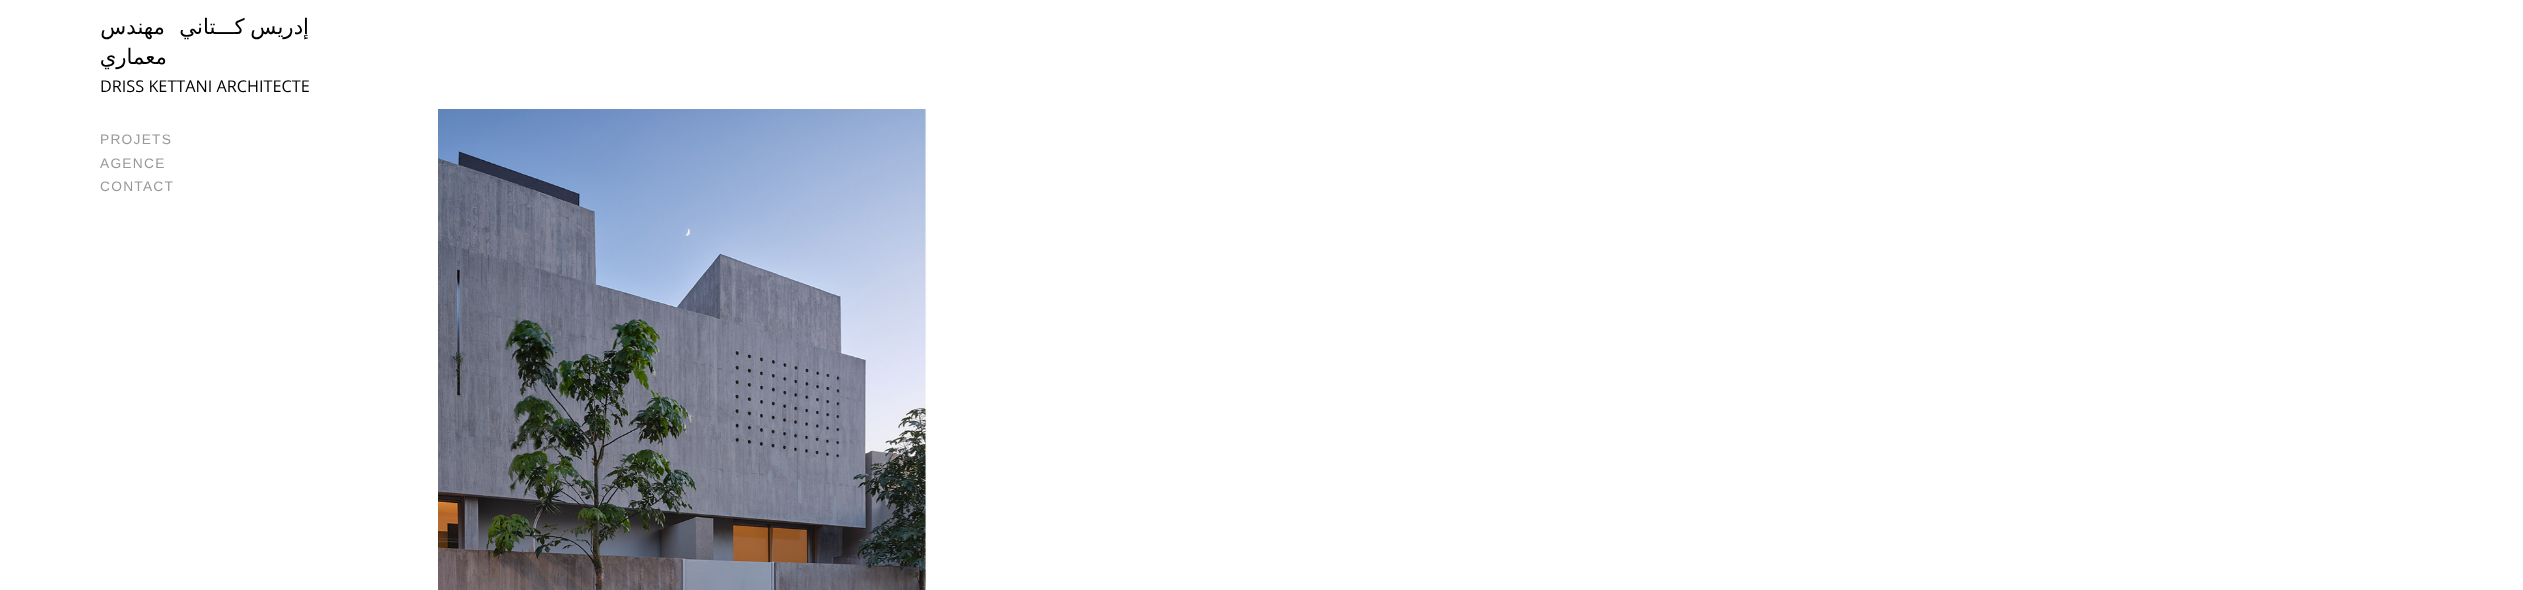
(async () => {
    const canvas = document.querySelector("canvas");
    canvas.width = 2523;
    canvas.height = 590;
    const context = canvas.getContext("2d");
    context.miterLimit = 4;
    context.fontKerning = "normal";
    function write(s, x, y, font, color) {
        context.font = font;
        context.fillStyle = color;
        context.fillText(s, x, y);
    }
    function block(x, y, w, h, color) {
        context.fillStyle = color;
        context.fillRect(x, y, w, h);
    }
    async function photo(src, x, y, w, h) {
        const img = new Image();
        img.src = src;
        await img.decode();
        context.drawImage(img, x, y, w, h);
    }

    block(0, 0, 2523, 590, "rgb(255, 255, 255)");
    context.direction = "rtl";
    write("مهندس", 165, 34, "21.25px DejaVu Sans", "rgb(0, 0, 0)");
    context.wordSpacing = "-1px";
    write("إدريس كـــتاني", 309, 34, "21.25px DejaVu Sans", "rgb(0, 0, 0)");
    context.wordSpacing = "0px";
    write("معماري", 167, 64, "21.25px DejaVu Sans", "rgb(0, 0, 0)");
    context.direction = "ltr";
    write("DRISS KETTANI ARCHITECTE", 100, 92, "16.25px Open Sans", "rgb(0, 0, 0)");
    context.letterSpacing = "1.25px";
    write("PROJETS", 100, 144, "13.75px Liberation Sans", "rgb(153, 153, 153)");
    write("AGENCE", 100, 168, "13.75px Liberation Sans", "rgb(153, 153, 153)");
    write("CONTACT", 100, 191, "13.75px Liberation Sans", "rgb(153, 153, 153)");
    await photo("media/1.png", 438, 109, 490, 481);
})();
